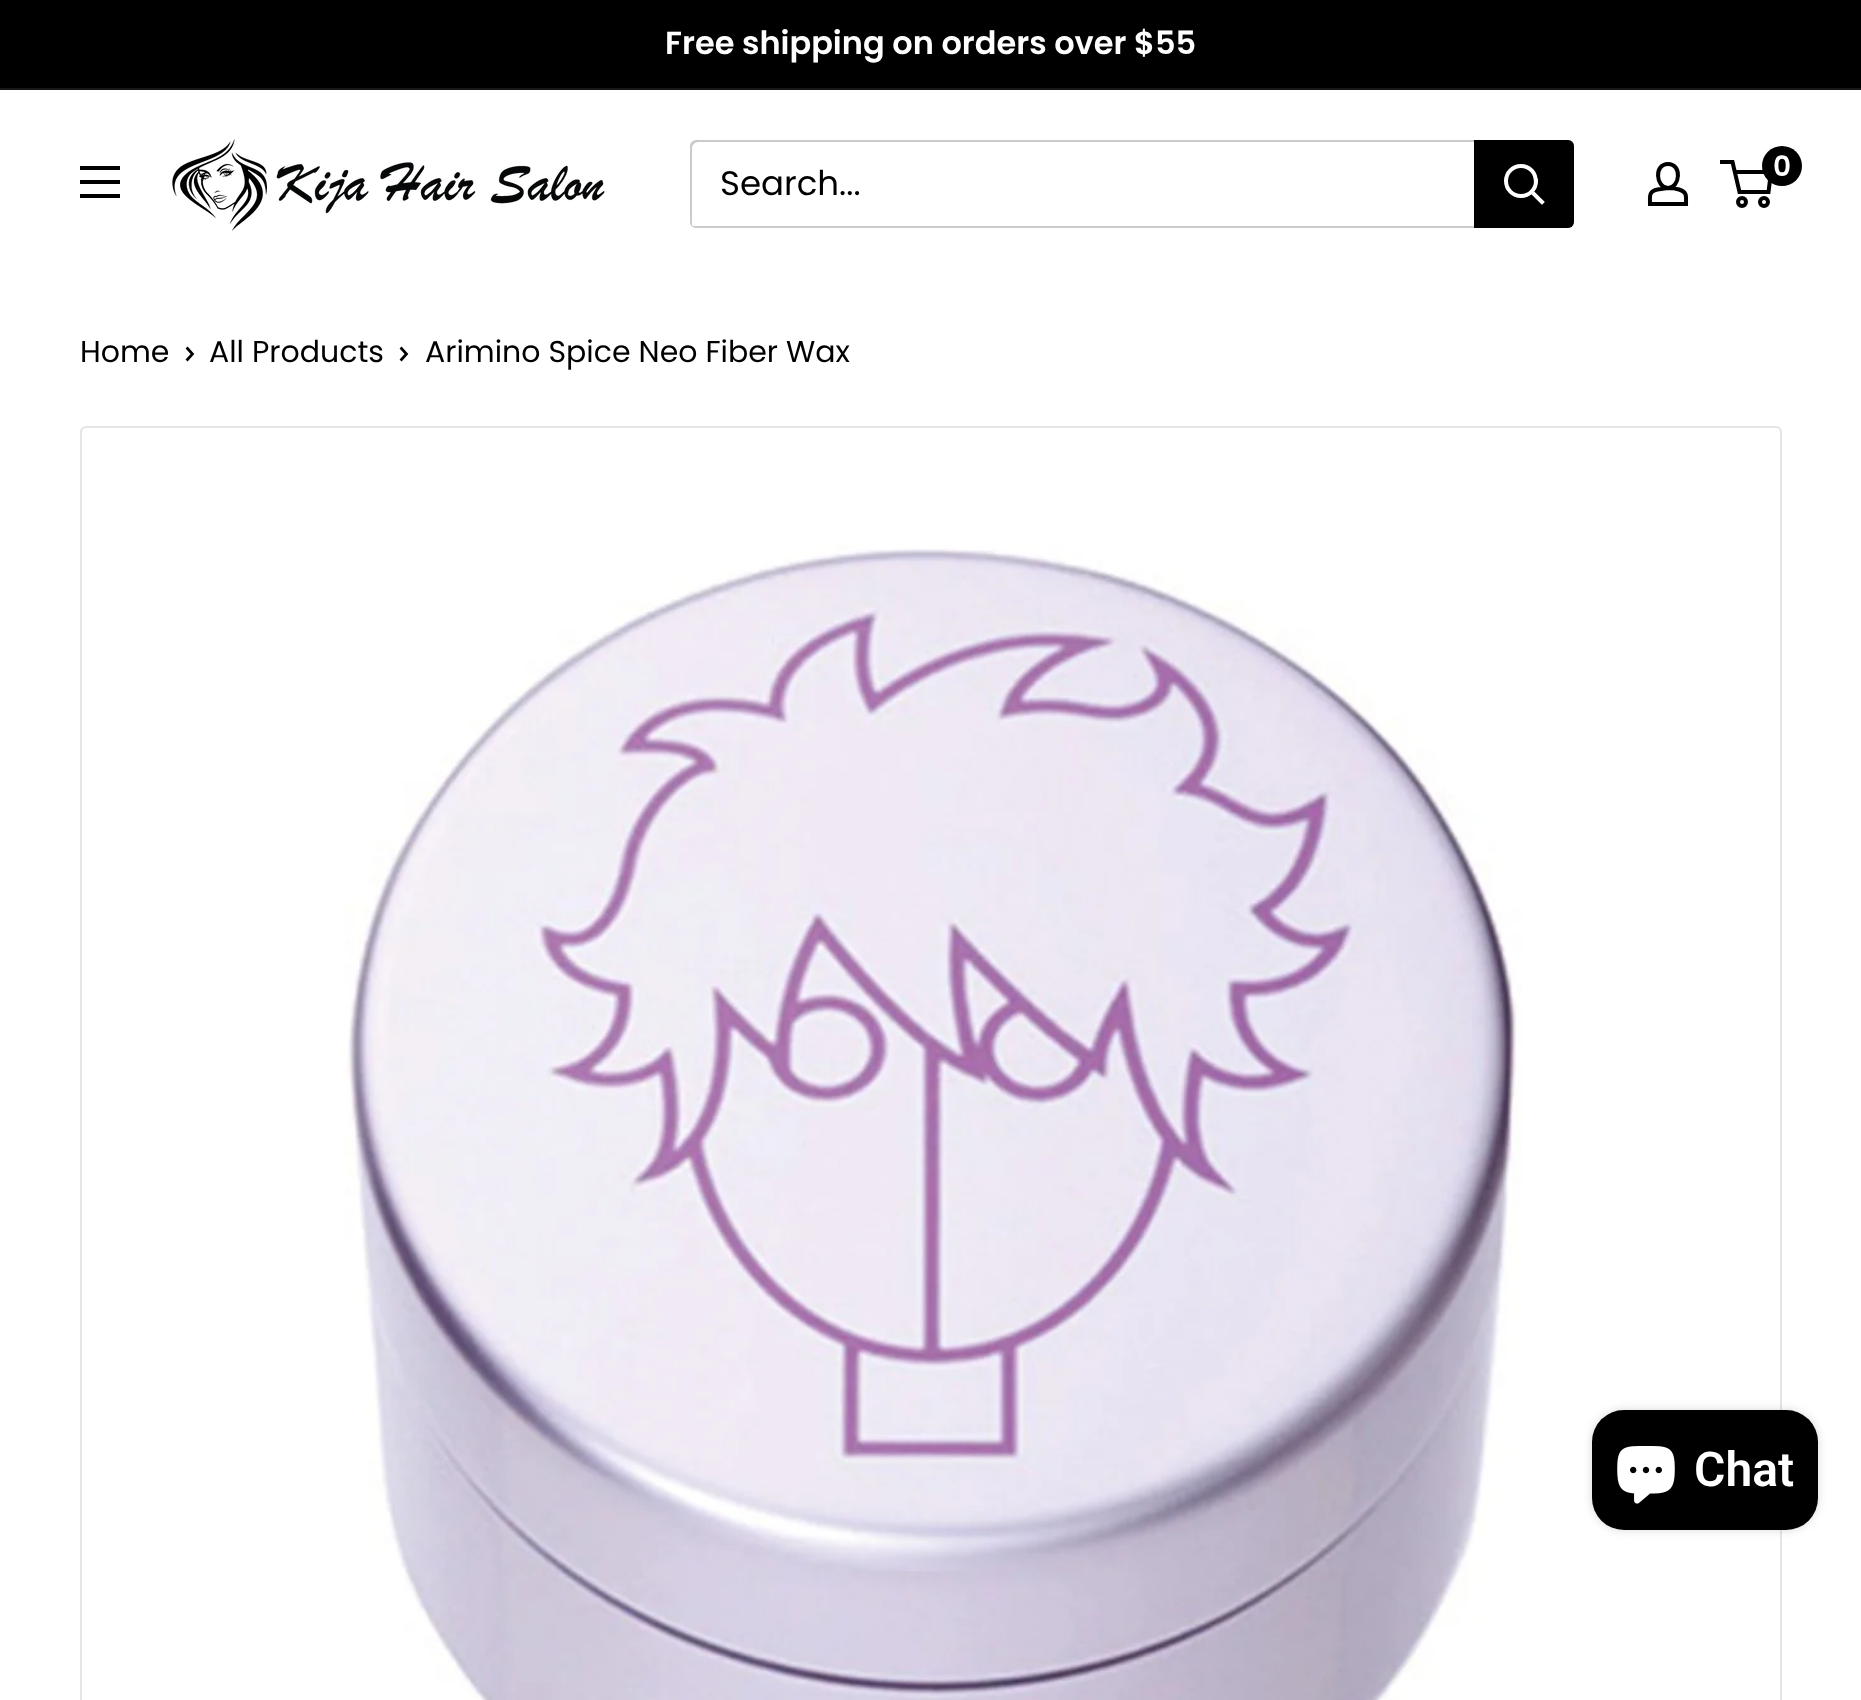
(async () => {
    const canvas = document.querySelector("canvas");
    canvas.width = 1861;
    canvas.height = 1700;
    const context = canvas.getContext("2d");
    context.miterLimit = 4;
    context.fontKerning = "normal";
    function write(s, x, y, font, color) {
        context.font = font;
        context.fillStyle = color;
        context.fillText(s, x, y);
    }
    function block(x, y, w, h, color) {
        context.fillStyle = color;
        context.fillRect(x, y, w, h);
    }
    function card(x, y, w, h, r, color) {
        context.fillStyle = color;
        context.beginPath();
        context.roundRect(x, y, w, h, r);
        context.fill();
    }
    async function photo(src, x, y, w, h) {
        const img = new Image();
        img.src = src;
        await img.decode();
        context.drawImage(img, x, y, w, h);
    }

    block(0, 0, 1861, 1700, "rgb(255, 255, 255)");
    block(0, 0, 1861, 88, "rgb(0, 0, 0)");
    block(0, 88, 1861, 2, "rgb(24, 24, 24)");
    write("Free shipping on orders over $55", 665, 54, "600 32px Poppins", "rgb(255, 255, 255)");
    context.fillStyle = "rgb(0, 0, 0)";
    context.beginPath();
    context.moveTo(80, 194);
    context.lineTo(120, 194);
    context.lineTo(120, 198);
    context.lineTo(80, 198);
    context.closePath();
    context.moveTo(80, 166);
    context.lineTo(120, 166);
    context.lineTo(120, 170);
    context.lineTo(80, 170);
    context.closePath();
    context.moveTo(80, 180);
    context.lineTo(120, 180);
    context.lineTo(120, 184);
    context.lineTo(80, 184);
    context.closePath();
    context.fill("evenodd");
    await photo("media/1.png", 172, 138, 433, 93);
    context.fillStyle = "rgb(203, 203, 203)";
    context.beginPath();
    context.moveTo(691, 225);
    context.bezierCurveTo(692, 227, 694, 228, 696, 228);
    context.lineTo(1568, 228);
    context.bezierCurveTo(1571, 228, 1574, 225, 1574, 222);
    context.lineTo(1574, 146);
    context.bezierCurveTo(1574, 144, 1573, 142, 1571, 141);
    context.bezierCurveTo(1572, 142, 1572, 143, 1572, 144);
    context.lineTo(1572, 220);
    context.bezierCurveTo(1572, 223, 1569, 226, 1566, 226);
    context.lineTo(694, 226);
    context.bezierCurveTo(693, 226, 692, 226, 691, 225);
    context.closePath();
    context.fill();
    context.fillStyle = "rgba(80, 80, 80, 0.3)";
    context.beginPath();
    context.moveTo(698, 142);
    context.lineTo(1570, 142);
    context.lineTo(1573, 143);
    context.bezierCurveTo(1572, 141, 1570, 140, 1568, 140);
    context.lineTo(696, 140);
    context.bezierCurveTo(693, 140, 690, 143, 690, 146);
    context.lineTo(690, 222);
    context.bezierCurveTo(690, 224, 691, 226, 693, 227);
    context.bezierCurveTo(692, 226, 692, 225, 692, 224);
    context.lineTo(692, 148);
    context.bezierCurveTo(692, 145, 695, 142, 698, 142);
    context.closePath();
    context.fill();
    write("Search...", 720, 195, "34px Poppins", "rgb(0, 0, 0)");
    context.beginPath();
    context.roundRect(1474, 140, 100, 88, [0, 6, 6, 0]);
    context.fill();
    context.beginPath();
    context.moveTo(1542, 202);
    context.lineTo(1532, 192);
    context.strokeStyle = "rgb(255, 255, 255)";
    context.lineWidth = 4;
    context.lineCap = "square";
    context.stroke();
    context.beginPath();
    context.arc(1521, 181, 15, 0, Math.PI * 2);
    context.stroke();
    context.beginPath();
    context.moveTo(1668, 188);
    context.bezierCurveTo(1672, 188, 1675.5, 188.5, 1679, 189.5);
    context.bezierCurveTo(1687.5, 192, 1686, 196.5, 1686, 204);
    context.lineTo(1650, 204);
    context.bezierCurveTo(1650, 196, 1648.5, 191.5, 1657.5, 189.5);
    context.closePath();
    context.moveTo(1668, 188);
    context.bezierCurveTo(1656, 188, 1653.5, 164, 1668, 164);
    context.bezierCurveTo(1682.5, 164, 1680, 188, 1668, 188);
    context.closePath();
    context.strokeStyle = "rgb(0, 0, 0)";
    context.lineCap = "butt";
    context.stroke();
    context.beginPath();
    context.arc(1742, 202, 4, 0, Math.PI * 2);
    context.stroke();
    context.beginPath();
    context.arc(1764, 202, 4, 0, Math.PI * 2);
    context.stroke();
    context.beginPath();
    context.moveTo(1734.5, 172);
    context.lineTo(1771, 172);
    context.lineTo(1768.5, 192);
    context.lineTo(1739.5, 192);
    context.lineTo(1732.5, 162);
    context.lineTo(1720, 162);
    context.stroke();
    context.beginPath();
    context.arc(1782, 166, 20, 0, Math.PI * 2);
    context.fill();
    write("0", 1773, 176, "600 28px Poppins", "rgb(255, 255, 255)");
    write("Home", 80, 362, "30px Poppins", "rgb(0, 0, 0)");
    context.beginPath();
    context.moveTo(187.5, 348.5);
    context.lineTo(192.5, 354);
    context.lineTo(187.5, 359.5);
    context.lineWidth = 2.7;
    context.lineCap = "square";
    context.stroke();
    write("All Products", 209, 362, "30px Poppins", "rgb(0, 0, 0)");
    context.beginPath();
    context.moveTo(401.5, 348.5);
    context.lineTo(406.5, 354);
    context.lineTo(401.5, 359.5);
    context.stroke();
    write("Arimino Spice Neo Fiber Wax", 425, 362, "30px Poppins", "rgb(0, 0, 0)");
    context.beginPath();
    context.roundRect(81, 427, 1700, 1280, 5);
    context.strokeStyle = "rgb(229, 229, 229)";
    context.lineWidth = 2;
    context.stroke();
    await photo("media/2.png", 344, 545, 1179, 1155);
    context.fillStyle = "rgba(0, 0, 0, 0.15)";
    context.filter = "blur(5px)";
    context.beginPath();
    context.roundRect(1592, 1410, 226, 120, 32);
    context.fill();
    context.filter = "none";
    card(1592, 1410, 226, 120, 32, "rgb(0, 0, 0)");
    await photo("media/3.png", 1617, 1446, 58, 58);
    write("Chat", 1694, 1486, "600 48px Roboto", "rgb(255, 255, 255)");
})();
